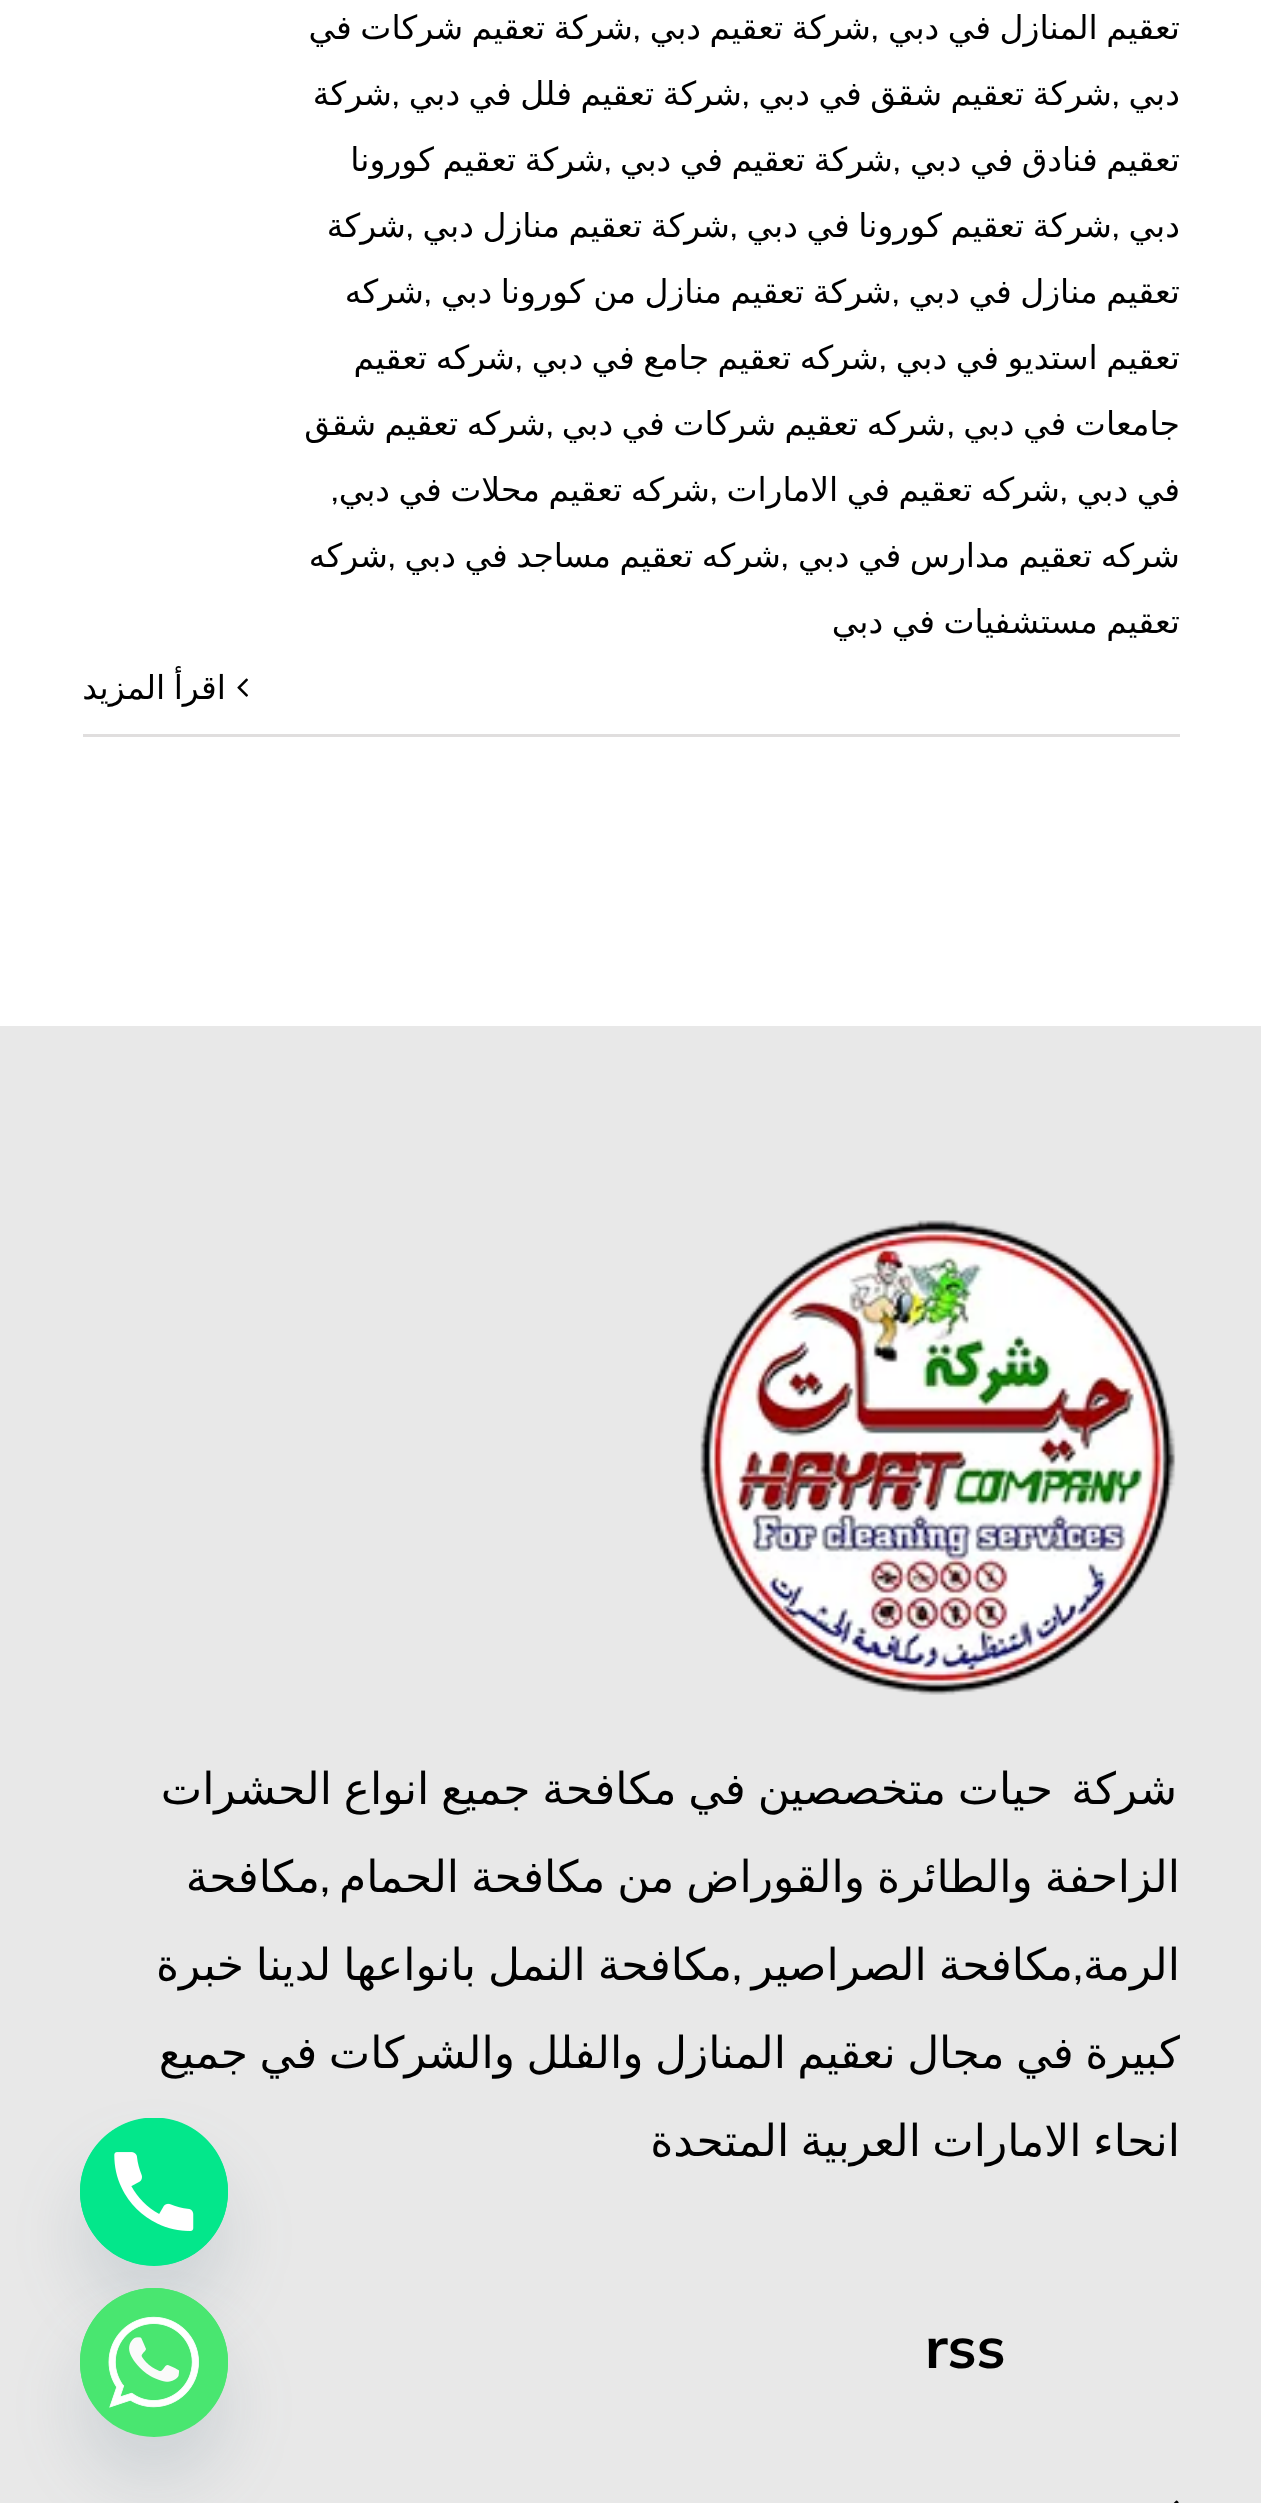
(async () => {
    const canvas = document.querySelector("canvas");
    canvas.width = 1261;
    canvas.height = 2503;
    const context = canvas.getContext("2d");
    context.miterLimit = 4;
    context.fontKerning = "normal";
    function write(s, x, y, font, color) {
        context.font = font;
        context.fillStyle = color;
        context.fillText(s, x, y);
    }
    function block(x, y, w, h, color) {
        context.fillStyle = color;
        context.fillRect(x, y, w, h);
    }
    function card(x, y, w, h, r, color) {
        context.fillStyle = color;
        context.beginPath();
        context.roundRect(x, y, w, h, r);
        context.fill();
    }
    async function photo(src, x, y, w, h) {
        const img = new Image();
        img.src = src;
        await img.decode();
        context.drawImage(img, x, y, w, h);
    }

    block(0, 0, 1261, 2503, "rgb(255, 255, 255)");
    block(83, 734, 1097, 3, "rgb(224, 222, 222)");
    context.save();
    context.beginPath();
    context.rect(83, 0, 1097, 734);
    context.clip();
    context.wordSpacing = "-2px";
    context.direction = "rtl";
    write("تعقيم المنازل في دبي", 1180, 39, "33px DejaVu Sans", "rgb(0, 0, 0)");
    context.restore();
    context.wordSpacing = "-2px";
    context.direction = "rtl";
    write("شركة تعقيم دبي", 871, 39, "33px DejaVu Sans", "rgb(0, 0, 0)");
    context.wordSpacing = "0px";
    context.direction = "ltr";
    write(",", 633, 39, "33px Mulish", "rgb(0, 0, 0)");
    context.wordSpacing = "-2px";
    context.direction = "rtl";
    write("شركة تعقيم شركات في", 633, 39, "33px DejaVu Sans", "rgb(0, 0, 0)");
    context.wordSpacing = "0px";
    context.direction = "ltr";
    write(",", 871, 39, "33px Mulish", "rgb(0, 0, 0)");
    context.direction = "rtl";
    write("دبي", 1180, 105, "33px DejaVu Sans", "rgb(0, 0, 0)");
    context.direction = "ltr";
    write(",", 1112, 105, "33px Mulish", "rgb(0, 0, 0)");
    context.wordSpacing = "-2px";
    context.direction = "rtl";
    write("شركة تعقيم شقق في دبي", 1112, 105, "33px DejaVu Sans", "rgb(0, 0, 0)");
    context.wordSpacing = "0px";
    context.direction = "ltr";
    write(",", 742, 105, "33px Mulish", "rgb(0, 0, 0)");
    context.wordSpacing = "-2px";
    context.direction = "rtl";
    write("شركة تعقيم فلل في دبي", 742, 105, "33px DejaVu Sans", "rgb(0, 0, 0)");
    context.wordSpacing = "0px";
    context.direction = "ltr";
    write(",", 392, 105, "33px Mulish", "rgb(0, 0, 0)");
    context.direction = "rtl";
    write("شركة", 392, 105, "33px DejaVu Sans", "rgb(0, 0, 0)");
    context.save();
    context.beginPath();
    context.rect(83, 0, 1097, 734);
    context.clip();
    context.wordSpacing = "-2px";
    write("تعقيم فنادق في دبي", 1180, 171, "33px DejaVu Sans", "rgb(0, 0, 0)");
    context.restore();
    context.direction = "ltr";
    write(",", 893, 171, "33px Mulish", "rgb(0, 0, 0)");
    context.wordSpacing = "-2px";
    context.direction = "rtl";
    write("شركة تعقيم في دبي", 893, 171, "33px DejaVu Sans", "rgb(0, 0, 0)");
    context.wordSpacing = "0px";
    context.direction = "ltr";
    write(",", 604, 171, "33px Mulish", "rgb(0, 0, 0)");
    context.wordSpacing = "-2px";
    context.direction = "rtl";
    write("شركة تعقيم كورونا", 604, 171, "33px DejaVu Sans", "rgb(0, 0, 0)");
    context.wordSpacing = "0px";
    write("دبي", 1180, 237, "33px DejaVu Sans", "rgb(0, 0, 0)");
    context.direction = "ltr";
    write(",", 1112, 237, "33px Mulish", "rgb(0, 0, 0)");
    context.wordSpacing = "-2px";
    context.direction = "rtl";
    write("شركة تعقيم كورونا في دبي", 1112, 237, "33px DejaVu Sans", "rgb(0, 0, 0)");
    context.wordSpacing = "0px";
    context.direction = "ltr";
    write(",", 730, 237, "33px Mulish", "rgb(0, 0, 0)");
    context.wordSpacing = "-2px";
    context.direction = "rtl";
    write("شركة تعقيم منازل دبي", 730, 237, "33px DejaVu Sans", "rgb(0, 0, 0)");
    context.wordSpacing = "0px";
    context.direction = "ltr";
    write(",", 406, 237, "33px Mulish", "rgb(0, 0, 0)");
    context.direction = "rtl";
    write("شركة", 406, 237, "33px DejaVu Sans", "rgb(0, 0, 0)");
    context.save();
    context.beginPath();
    context.rect(83, 0, 1097, 734);
    context.clip();
    context.wordSpacing = "-2px";
    write("تعقيم منازل في دبي", 1180, 303, "33px DejaVu Sans", "rgb(0, 0, 0)");
    context.restore();
    context.direction = "ltr";
    write(",", 892, 303, "33px Mulish", "rgb(0, 0, 0)");
    context.wordSpacing = "-2px";
    context.direction = "rtl";
    write("شركة تعقيم منازل من كورونا دبي", 892, 303, "33px DejaVu Sans", "rgb(0, 0, 0)");
    context.wordSpacing = "0px";
    context.direction = "ltr";
    write(",", 424, 303, "33px Mulish", "rgb(0, 0, 0)");
    context.direction = "rtl";
    write("شركه", 424, 303, "33px DejaVu Sans", "rgb(0, 0, 0)");
    context.save();
    context.beginPath();
    context.rect(83, 0, 1097, 734);
    context.clip();
    context.wordSpacing = "-2px";
    write("تعقيم استديو في دبي", 1180, 369, "33px DejaVu Sans", "rgb(0, 0, 0)");
    context.restore();
    context.direction = "ltr";
    write(",", 879, 369, "33px Mulish", "rgb(0, 0, 0)");
    context.wordSpacing = "-2px";
    context.direction = "rtl";
    write("شركه تعقيم جامع في دبي", 879, 369, "33px DejaVu Sans", "rgb(0, 0, 0)");
    context.wordSpacing = "0px";
    context.direction = "ltr";
    write(",", 515, 369, "33px Mulish", "rgb(0, 0, 0)");
    context.wordSpacing = "-2px";
    context.direction = "rtl";
    write("شركه تعقيم", 515, 369, "33px DejaVu Sans", "rgb(0, 0, 0)");
    context.save();
    context.beginPath();
    context.rect(83, 0, 1097, 734);
    context.clip();
    write("جامعات في دبي", 1180, 435, "33px DejaVu Sans", "rgb(0, 0, 0)");
    context.restore();
    context.wordSpacing = "0px";
    context.direction = "ltr";
    write(",", 947, 435, "33px Mulish", "rgb(0, 0, 0)");
    context.wordSpacing = "-2px";
    context.direction = "rtl";
    write("شركه تعقيم شركات في دبي", 946, 435, "33px DejaVu Sans", "rgb(0, 0, 0)");
    context.wordSpacing = "0px";
    context.direction = "ltr";
    write(",", 546, 435, "33px Mulish", "rgb(0, 0, 0)");
    context.wordSpacing = "-2px";
    context.direction = "rtl";
    write("شركه تعقيم شقق", 546, 435, "33px DejaVu Sans", "rgb(0, 0, 0)");
    write("في دبي", 1180, 501, "33px DejaVu Sans", "rgb(0, 0, 0)");
    context.wordSpacing = "0px";
    context.direction = "ltr";
    write(",", 1060, 501, "33px Mulish", "rgb(0, 0, 0)");
    context.wordSpacing = "-2px";
    context.direction = "rtl";
    write("شركه تعقيم في الامارات", 1060, 501, "33px DejaVu Sans", "rgb(0, 0, 0)");
    context.wordSpacing = "0px";
    context.direction = "ltr";
    write(",", 710, 501, "33px Mulish", "rgb(0, 0, 0)");
    context.wordSpacing = "-2px";
    context.direction = "rtl";
    write("شركه تعقيم محلات في دبي", 710, 501, "33px DejaVu Sans", "rgb(0, 0, 0)");
    context.wordSpacing = "0px";
    context.direction = "ltr";
    write(",", 331, 501, "33px Mulish", "rgb(0, 0, 0)");
    context.save();
    context.beginPath();
    context.rect(83, 0, 1097, 734);
    context.clip();
    context.wordSpacing = "-2px";
    context.direction = "rtl";
    write("شركه تعقيم مدارس في دبي", 1180, 567, "33px DejaVu Sans", "rgb(0, 0, 0)");
    context.restore();
    write(",", 781, 567, "33px Mulish", "rgb(0, 0, 0)");
    context.wordSpacing = "-2px";
    context.direction = "rtl";
    write("شركه تعقيم مساجد في دبي", 781, 567, "33px DejaVu Sans", "rgb(0, 0, 0)");
    context.wordSpacing = "0px";
    context.direction = "ltr";
    write(",", 388, 567, "33px Mulish", "rgb(0, 0, 0)");
    context.direction = "rtl";
    write("شركه", 388, 567, "33px DejaVu Sans", "rgb(0, 0, 0)");
    context.save();
    context.beginPath();
    context.rect(83, 0, 1097, 734);
    context.clip();
    context.wordSpacing = "-2px";
    write("تعقيم مستشفيات في دبي", 1180, 633, "33px DejaVu Sans", "rgb(0, 0, 0)");
    context.restore();
    await photo("media/1.png", 237, 678, 11, 19);
    context.wordSpacing = "-2px";
    write("اقرأ المزيد", 226, 699, "33px DejaVu Sans", "rgb(0, 0, 0)");
    block(0, 1026, 1261, 1477, "rgb(232, 232, 232)");
    await photo("media/2.png", 700, 1220, 476, 475);
    context.wordSpacing = "0px";
    write("شركة", 1177, 1804, "44px DejaVu Sans", "rgb(0, 0, 0)");
    context.wordSpacing = "-2.25px";
    write("حيات متخصصين في مكافحة جميع انواع الحشرات", 1053, 1804, "44px DejaVu Sans", "rgb(0, 0, 0)");
    context.wordSpacing = "-2px";
    write("الزاحفة والطائرة والقوراض من مكافحة الحمام", 1180, 1892, "44px DejaVu Sans", "rgb(0, 0, 0)");
    context.wordSpacing = "0px";
    write(",", 330, 1892, "44px Mulish", "rgb(0, 0, 0)");
    write("مكافحة", 320, 1892, "44px DejaVu Sans", "rgb(0, 0, 0)");
    write("الرمة", 1180, 1980, "44px DejaVu Sans", "rgb(0, 0, 0)");
    context.wordSpacing = "-2px";
    write("مكافحة الصراصير", 1073, 1980, "44px DejaVu Sans", "rgb(0, 0, 0)");
    write("مكافحة النمل بانواعها لدينا خبرة", 732, 1980, "44px DejaVu Sans", "rgb(0, 0, 0)");
    context.wordSpacing = "0px";
    write(",", 1083, 1980, "44px Mulish", "rgb(0, 0, 0)");
    write(",", 742, 1980, "44px Mulish", "rgb(0, 0, 0)");
    context.wordSpacing = "-2.5px";
    write("كبيرة في مجال نعقيم المنازل والفلل والشركات في جميع", 1180, 2068, "44px DejaVu Sans", "rgb(0, 0, 0)");
    write("انحاء الامارات العربية المتحدة", 1180, 2156, "44px DejaVu Sans", "rgb(0, 0, 0)");
    context.wordSpacing = "0px";
    context.direction = "ltr";
    write("rss", 925, 2368, "bold 58px Mulish", "rgb(0, 0, 0)");
    await photo("media/3.png", 1173, 2500, 6, 3);
    context.fillStyle = "rgba(73, 104, 126, 0.16)";
    context.filter = "blur(33px)";
    context.beginPath();
    context.roundRect(80, 2162, 148, 148, 74);
    context.fill();
    context.filter = "none";
    context.fillStyle = "rgb(3, 231, 139)";
    context.beginPath();
    context.arc(154, 2192, 74, 0, Math.PI * 2);
    context.fill();
    await photo("media/4.png", 80, 2118, 148, 148);
    context.fillStyle = "rgba(73, 104, 126, 0.16)";
    context.filter = "blur(33px)";
    context.beginPath();
    context.roundRect(80, 2332, 148, 149, 74);
    context.fill();
    context.filter = "none";
    card(80, 2288, 148, 149, 74, "rgb(73, 230, 112)");
    await photo("media/5.png", 80, 2288, 148, 120);
})();
